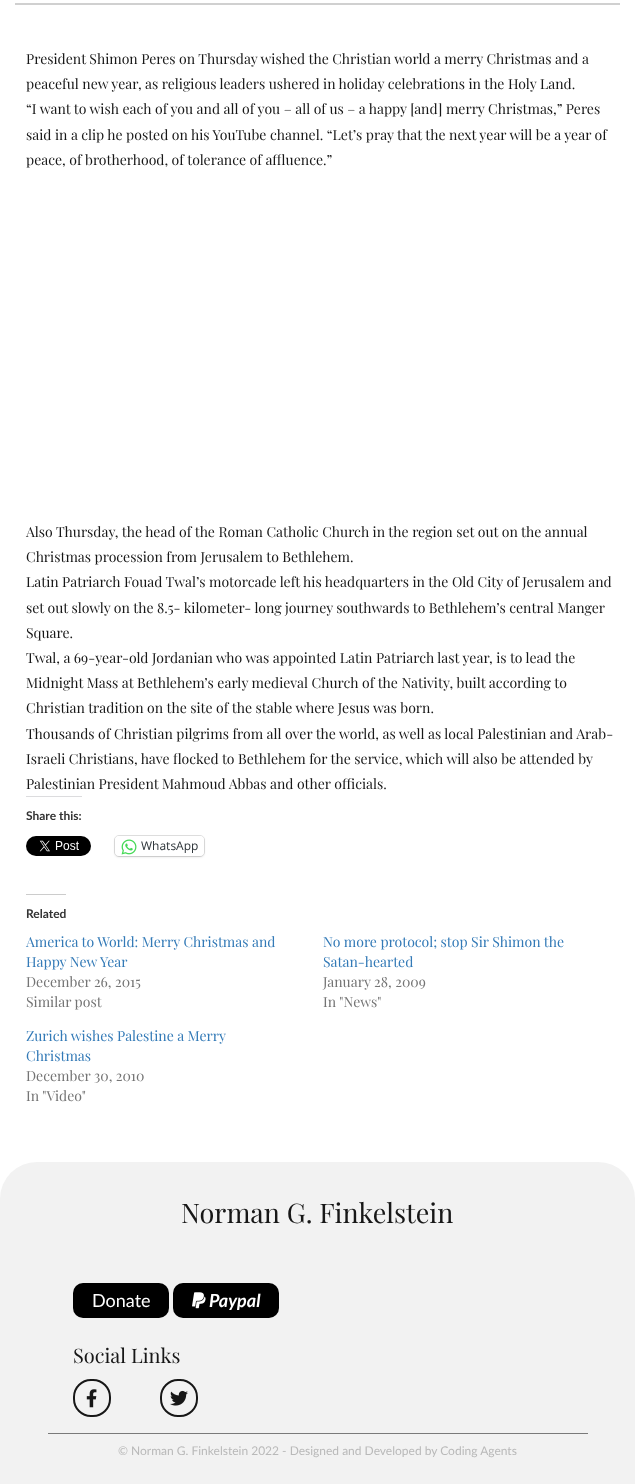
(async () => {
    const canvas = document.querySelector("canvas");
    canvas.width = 635;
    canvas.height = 1484;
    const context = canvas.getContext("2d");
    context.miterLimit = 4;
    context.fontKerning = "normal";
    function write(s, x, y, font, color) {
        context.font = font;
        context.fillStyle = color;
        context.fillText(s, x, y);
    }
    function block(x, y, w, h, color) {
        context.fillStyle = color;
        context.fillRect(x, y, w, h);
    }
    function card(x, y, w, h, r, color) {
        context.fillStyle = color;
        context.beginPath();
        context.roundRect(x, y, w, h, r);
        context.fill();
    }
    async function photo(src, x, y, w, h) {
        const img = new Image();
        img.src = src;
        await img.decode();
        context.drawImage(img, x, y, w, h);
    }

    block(0, 0, 635, 1484, "rgb(255, 255, 255)");
    block(15, 3, 605, 2, "rgb(208, 208, 208)");
    write("President Shimon Peres on Thursday wished the Christian world a merry Christmas and a", 26, 64, "14px Playfair Display", "rgb(23, 23, 23)");
    write("peaceful new year, as religious leaders ushered in holiday celebrations in the Holy Land.", 26, 89, "14px Playfair Display", "rgb(23, 23, 23)");
    write("“I want to wish each of you and all of you – all of us – a happy [and] merry Christmas,” Peres", 26, 114, "14px Playfair Display", "rgb(23, 23, 23)");
    write("said in a clip he posted on his YouTube channel. “Let’s pray that the next year will be a year of", 26, 140, "14px Playfair Display", "rgb(23, 23, 23)");
    write("peace, of brotherhood, of tolerance of affluence.”", 26, 165, "14px Playfair Display", "rgb(23, 23, 23)");
    write("Also Thursday, the head of the Roman Catholic Church in the region set out on the annual", 26, 537, "14px Playfair Display", "rgb(23, 23, 23)");
    write("Christmas procession from Jerusalem to Bethlehem.", 26, 562, "14px Playfair Display", "rgb(23, 23, 23)");
    write("Latin Patriarch Fouad Twal’s motorcade left his headquarters in the Old City of Jerusalem and", 26, 587, "14px Playfair Display", "rgb(23, 23, 23)");
    write("set out slowly on the 8.5- kilometer- long journey southwards to Bethlehem’s central Manger", 26, 613, "14px Playfair Display", "rgb(23, 23, 23)");
    write("Square.", 26, 638, "14px Playfair Display", "rgb(23, 23, 23)");
    write("Twal, a 69-year-old Jordanian who was appointed Latin Patriarch last year, is to lead the", 26, 663, "14px Playfair Display", "rgb(23, 23, 23)");
    write("Midnight Mass at Bethlehem’s early medieval Church of the Nativity, built according to", 26, 688, "14px Playfair Display", "rgb(23, 23, 23)");
    write("Christian tradition on the site of the stable where Jesus was born.", 26, 713, "14px Playfair Display", "rgb(23, 23, 23)");
    write("Thousands of Christian pilgrims from all over the world, as well as local Palestinian and Arab-", 26, 739, "14px Playfair Display", "rgb(23, 23, 23)");
    write("Israeli Christians, have flocked to Bethlehem for the service, which will also be attended by", 26, 764, "14px Playfair Display", "rgb(23, 23, 23)");
    write("Palestinian President Mahmoud Abbas and other officials.", 26, 789, "14px Playfair Display", "rgb(23, 23, 23)");
    block(26, 796, 56, 1, "rgb(220, 220, 222)");
    write("Share this:", 26, 820, "bold 12px Lato", "rgb(51, 51, 51)");
    await photo("media/1.png", 26, 836, 65, 20);
    context.beginPath();
    context.roundRect(114.5, 835.5, 90, 21, 4.5);
    context.strokeStyle = "rgb(224, 224, 224)";
    context.stroke();
    context.fillStyle = "rgba(0, 0, 0, 0.12)";
    context.filter = "blur(1px)";
    context.beginPath();
    context.roundRect(115, 837, 89, 20, 4);
    context.fill();
    context.filter = "none";
    card(115, 836, 89, 20, 4, "rgb(255, 255, 255)");
    await photo("media/2.png", 121, 839, 16, 16);
    write("WhatsApp", 141, 850, "12px Open Sans", "rgb(44, 51, 56)");
    block(26, 894, 40, 1, "rgb(204, 204, 204)");
    write("Related", 26, 918, "bold 12px Lato", "rgb(51, 51, 51)");
    write("America to World: Merry Christmas and", 26, 947, "14px Playfair Display", "rgb(51, 122, 183)");
    write("Happy New Year", 26, 967, "14px Playfair Display", "rgb(51, 122, 183)");
    write("December 26, 2015", 26, 987, "14px Playfair Display", "rgb(116, 116, 116)");
    write("Similar post", 26, 1007, "14px Playfair Display", "rgb(116, 116, 116)");
    write("No more protocol; stop Sir Shimon the", 323, 947, "14px Playfair Display", "rgb(51, 122, 183)");
    write("Satan-hearted", 323, 967, "14px Playfair Display", "rgb(51, 122, 183)");
    write("January 28, 2009", 323, 987, "14px Playfair Display", "rgb(116, 116, 116)");
    write("In \"News\"", 323, 1007, "14px Playfair Display", "rgb(116, 116, 116)");
    write("Zurich wishes Palestine a Merry", 26, 1041, "14px Playfair Display", "rgb(51, 122, 183)");
    write("Christmas", 26, 1061, "14px Playfair Display", "rgb(51, 122, 183)");
    write("December 30, 2010", 26, 1081, "14px Playfair Display", "rgb(116, 116, 116)");
    write("In \"Video\"", 26, 1101, "14px Playfair Display", "rgb(116, 116, 116)");
    context.fillStyle = "rgb(242, 242, 242)";
    context.beginPath();
    context.roundRect(0, 1162, 635, 322, [37, 37, 0, 0]);
    context.fill();
    write("Norman G. Finkelstein", 181, 1223, "27px Playfair Display", "rgb(23, 23, 23)");
    block(48, 1433, 540, 1, "rgb(122, 122, 122)");
    card(73, 1283, 96, 35, 10, "rgb(0, 0, 0)");
    write("Donate", 92, 1307, "18px Lato", "rgb(255, 255, 255)");
    card(173, 1283, 106, 35, 10, "rgb(0, 0, 0)");
    await photo("media/3.png", 192, 1292, 14, 17);
    write("Paypal", 209, 1307, "italic bold 18px Lato", "rgb(255, 255, 255)");
    write("Social Links", 73, 1363, "20px Playfair Display", "rgb(23, 23, 23)");
    context.beginPath();
    context.roundRect(74, 1380, 36, 36, 17);
    context.strokeStyle = "rgb(23, 23, 23)";
    context.lineWidth = 2;
    context.stroke();
    await photo("media/4.png", 86, 1389, 11, 19);
    context.beginPath();
    context.roundRect(161, 1380, 36, 36, 17);
    context.stroke();
    await photo("media/5.png", 170, 1390, 18, 16);
    write("© Norman G. Finkelstein 2022 - Designed and Developed by Coding Agents", 118, 1455, "12px Lato", "rgb(185, 185, 185)");
})();
